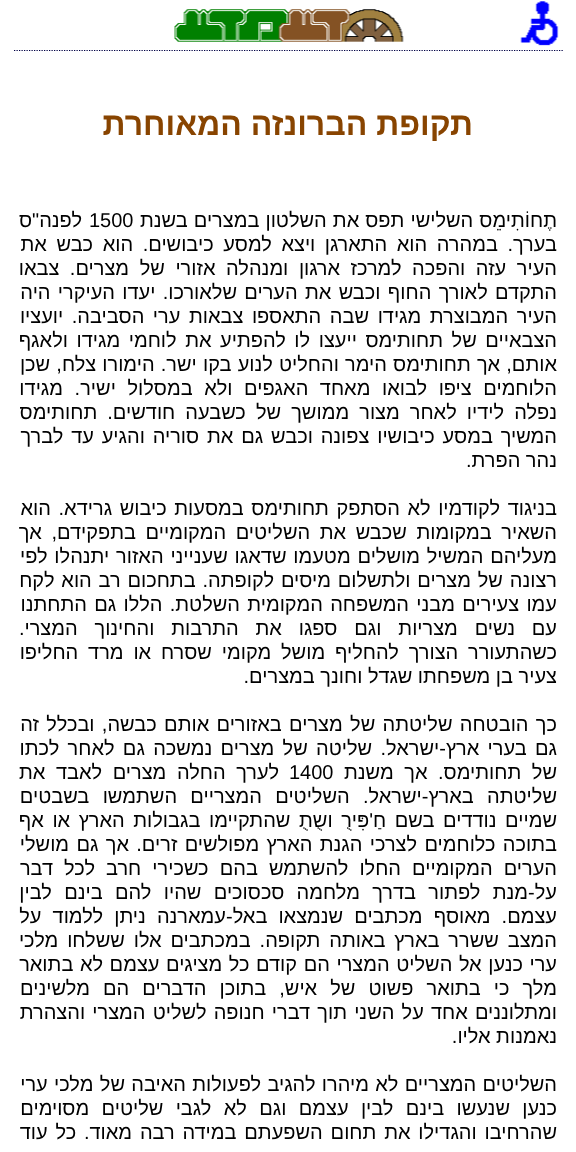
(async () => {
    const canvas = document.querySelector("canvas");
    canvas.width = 576;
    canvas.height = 1152;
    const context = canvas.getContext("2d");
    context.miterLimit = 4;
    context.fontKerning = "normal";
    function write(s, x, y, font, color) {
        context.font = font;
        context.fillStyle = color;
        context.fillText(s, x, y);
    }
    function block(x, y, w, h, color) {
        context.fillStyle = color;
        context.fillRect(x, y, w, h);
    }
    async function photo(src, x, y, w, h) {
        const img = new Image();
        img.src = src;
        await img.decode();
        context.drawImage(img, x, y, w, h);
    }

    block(0, 0, 576, 1152, "rgb(255, 255, 255)");
    context.beginPath();
    context.moveTo(14, 50.5);
    context.lineTo(564, 50.5);
    context.strokeStyle = "rgb(0, 0, 68)";
    context.lineWidth = 1.2;
    context.setLineDash([1.25, 1.25]);
    context.stroke();
    await photo("media/1.png", 520, 1, 39, 45);
    await photo("media/2.png", 174, 9, 230, 33);
    context.direction = "rtl";
    write("תקופת הברונזה המאוחרת", 473, 135, "bold 32px Liberation Sans", "rgb(136, 68, 0)");
    context.wordSpacing = "0.5px";
    write("תֶחוֹתִימֵס השלישי תפס את השלטון במצרים בשנת", 557, 227, "20px Liberation Sans", "rgb(0, 0, 0)");
    context.wordSpacing = "0px";
    context.direction = "ltr";
    write("1500", 89, 227, "20px Liberation Sans", "rgb(0, 0, 0)");
    context.direction = "rtl";
    write("לפנה\"ס", 82, 227, "20px Liberation Sans", "rgb(0, 0, 0)");
    context.wordSpacing = "4px";
    write("בערך. במהרה הוא התארגן ויצא למסע כיבושים. הוא כבש את", 557, 251, "20px Liberation Sans", "rgb(0, 0, 0)");
    context.wordSpacing = "5px";
    write("העיר עזה והפכה למרכז ארגון ומנהלה אזורי של מצרים. צבאו", 557, 275, "20px Liberation Sans", "rgb(0, 0, 0)");
    context.wordSpacing = "1.75px";
    write("התקדם לאורך החוף וכבש את הערים שלאורכו. יעדו העיקרי היה", 557, 299, "20px Liberation Sans", "rgb(0, 0, 0)");
    context.wordSpacing = "3px";
    write("העיר המבוצרת מגידו שבה התאספו צבאות ערי הסביבה. יועציו", 557, 323, "20px Liberation Sans", "rgb(0, 0, 0)");
    write("הצבאיים של תחותימס ייעצו לו להפתיע את לוחמי מגידו ולאגף", 557, 347, "20px Liberation Sans", "rgb(0, 0, 0)");
    context.wordSpacing = "0.6px";
    write("אותם, אך תחותימס הימר והחליט לנוע בקו ישר. הימורו צלח, שכן", 557, 371, "20px Liberation Sans", "rgb(0, 0, 0)");
    context.wordSpacing = "6px";
    write("הלוחמים ציפו לבואו מאחד האגפים ולא במסלול ישיר. מגידו", 557, 395, "20px Liberation Sans", "rgb(0, 0, 0)");
    context.wordSpacing = "4.5px";
    write("נפלה לידיו לאחר מצור ממושך של כשבעה חודשים. תחותימס", 557, 419, "20px Liberation Sans", "rgb(0, 0, 0)");
    context.wordSpacing = "2.25px";
    write("המשיך במסע כיבושיו צפונה וכבש גם את סוריה והגיע עד לברך", 557, 443, "20px Liberation Sans", "rgb(0, 0, 0)");
    context.wordSpacing = "0px";
    write("נהר הפרת.", 557, 467, "20px Liberation Sans", "rgb(0, 0, 0)");
    context.wordSpacing = "2px";
    write("בניגוד לקודמיו לא הסתפק תחותימס במסעות כיבוש גרידא. הוא", 557, 515, "20px Liberation Sans", "rgb(0, 0, 0)");
    context.wordSpacing = "4px";
    write("השאיר במקומות שכבש את השליטים המקומיים בתפקידם, אך", 557, 539, "20px Liberation Sans", "rgb(0, 0, 0)");
    context.wordSpacing = "1.25px";
    write("מעליהם המשיל מושלים מטעמו שדאגו שענייני האזור יתנהלו לפי", 557, 563, "20px Liberation Sans", "rgb(0, 0, 0)");
    write("רצונה של מצרים ולתשלום מיסים לקופתה. בתחכום רב הוא לקח", 557, 587, "20px Liberation Sans", "rgb(0, 0, 0)");
    context.wordSpacing = "1.75px";
    write("עמו צעירים מבני המשפחה המקומית השלטת. הללו גם התחתנו", 557, 611, "20px Liberation Sans", "rgb(0, 0, 0)");
    context.wordSpacing = "11.25px";
    write("עם נשים מצריות וגם ספגו את התרבות והחינוך המצרי.", 557, 635, "20px Liberation Sans", "rgb(0, 0, 0)");
    context.wordSpacing = "4.25px";
    write("כשהתעורר הצורך להחליף מושל מקומי שסרח או מרד החליפו", 557, 659, "20px Liberation Sans", "rgb(0, 0, 0)");
    context.wordSpacing = "0px";
    write("צעיר בן משפחתו שגדל וחונך במצרים.", 557, 683, "20px Liberation Sans", "rgb(0, 0, 0)");
    context.wordSpacing = "1.75px";
    write("כך הובטחה שליטתה של מצרים באזורים אותם כבשה, ובכלל זה", 557, 731, "20px Liberation Sans", "rgb(0, 0, 0)");
    context.wordSpacing = "2.75px";
    write("גם בערי ארץ-ישראל. שליטה של מצרים נמשכה גם לאחר לכתו", 557, 755, "20px Liberation Sans", "rgb(0, 0, 0)");
    context.wordSpacing = "5px";
    write("של תחותימס. אך משנת", 557, 779, "20px Liberation Sans", "rgb(0, 0, 0)");
    context.wordSpacing = "0px";
    context.direction = "ltr";
    write("1400", 289, 779, "20px Liberation Sans", "rgb(0, 0, 0)");
    context.wordSpacing = "5px";
    context.direction = "rtl";
    write("לערך החלה מצרים לאבד את", 279, 779, "20px Liberation Sans", "rgb(0, 0, 0)");
    context.wordSpacing = "7.75px";
    write("שליטתה בארץ-ישראל. השליטים המצריים השתמשו בשבטים", 557, 803, "20px Liberation Sans", "rgb(0, 0, 0)");
    context.wordSpacing = "3px";
    write("שמיים נודדים בשם חַ'פִּירֻ ושֻתֻ שהתקיימו בגבולות הארץ או אף", 557, 827, "20px Liberation Sans", "rgb(0, 0, 0)");
    context.wordSpacing = "1.75px";
    write("בתוכה כלוחמים לצרכי הגנת הארץ מפולשים זרים. אך גם מושלי", 557, 851, "20px Liberation Sans", "rgb(0, 0, 0)");
    context.wordSpacing = "5.5px";
    write("הערים המקומיים החלו להשתמש בהם כשכירי חרב לכל דבר", 557, 875, "20px Liberation Sans", "rgb(0, 0, 0)");
    context.wordSpacing = "6.75px";
    write("על-מנת לפתור בדרך מלחמה סכסוכים שהיו להם בינם לבין", 557, 899, "20px Liberation Sans", "rgb(0, 0, 0)");
    context.wordSpacing = "5.5px";
    write("עצמם. מאוסף מכתבים שנמצאו באל-עמארנה ניתן ללמוד על", 557, 923, "20px Liberation Sans", "rgb(0, 0, 0)");
    context.wordSpacing = "3.25px";
    write("המצב ששרר בארץ באותה תקופה. במכתבים אלו ששלחו מלכי", 557, 947, "20px Liberation Sans", "rgb(0, 0, 0)");
    context.wordSpacing = "1px";
    write("ערי כנען אל השליט המצרי הם קודם כל מציגים עצמם לא בתואר", 557, 971, "20px Liberation Sans", "rgb(0, 0, 0)");
    context.wordSpacing = "7.5px";
    write("מלך כי בתואר פשוט של איש, בתוכן הדברים הם מלשינים", 557, 995, "20px Liberation Sans", "rgb(0, 0, 0)");
    context.wordSpacing = "1.6px";
    write("ומתלוננים אחד על השני תוך דברי חנופה לשליט המצרי והצהרת", 557, 1019, "20px Liberation Sans", "rgb(0, 0, 0)");
    context.wordSpacing = "0px";
    write("נאמנות אליו.", 557, 1043, "20px Liberation Sans", "rgb(0, 0, 0)");
    context.wordSpacing = "0.75px";
    write("השליטים המצריים לא מיהרו להגיב לפעולות האיבה של מלכי ערי", 557, 1091, "20px Liberation Sans", "rgb(0, 0, 0)");
    context.wordSpacing = "6.75px";
    write("כנען שנעשו בינם לבין עצמם וגם לא לגבי שליטים מסוימים", 557, 1115, "20px Liberation Sans", "rgb(0, 0, 0)");
    context.wordSpacing = "2.25px";
    write("שהרחיבו והגדילו את תחום השפעתם במידה רבה מאוד. כל עוד", 557, 1139, "20px Liberation Sans", "rgb(0, 0, 0)");
})();
